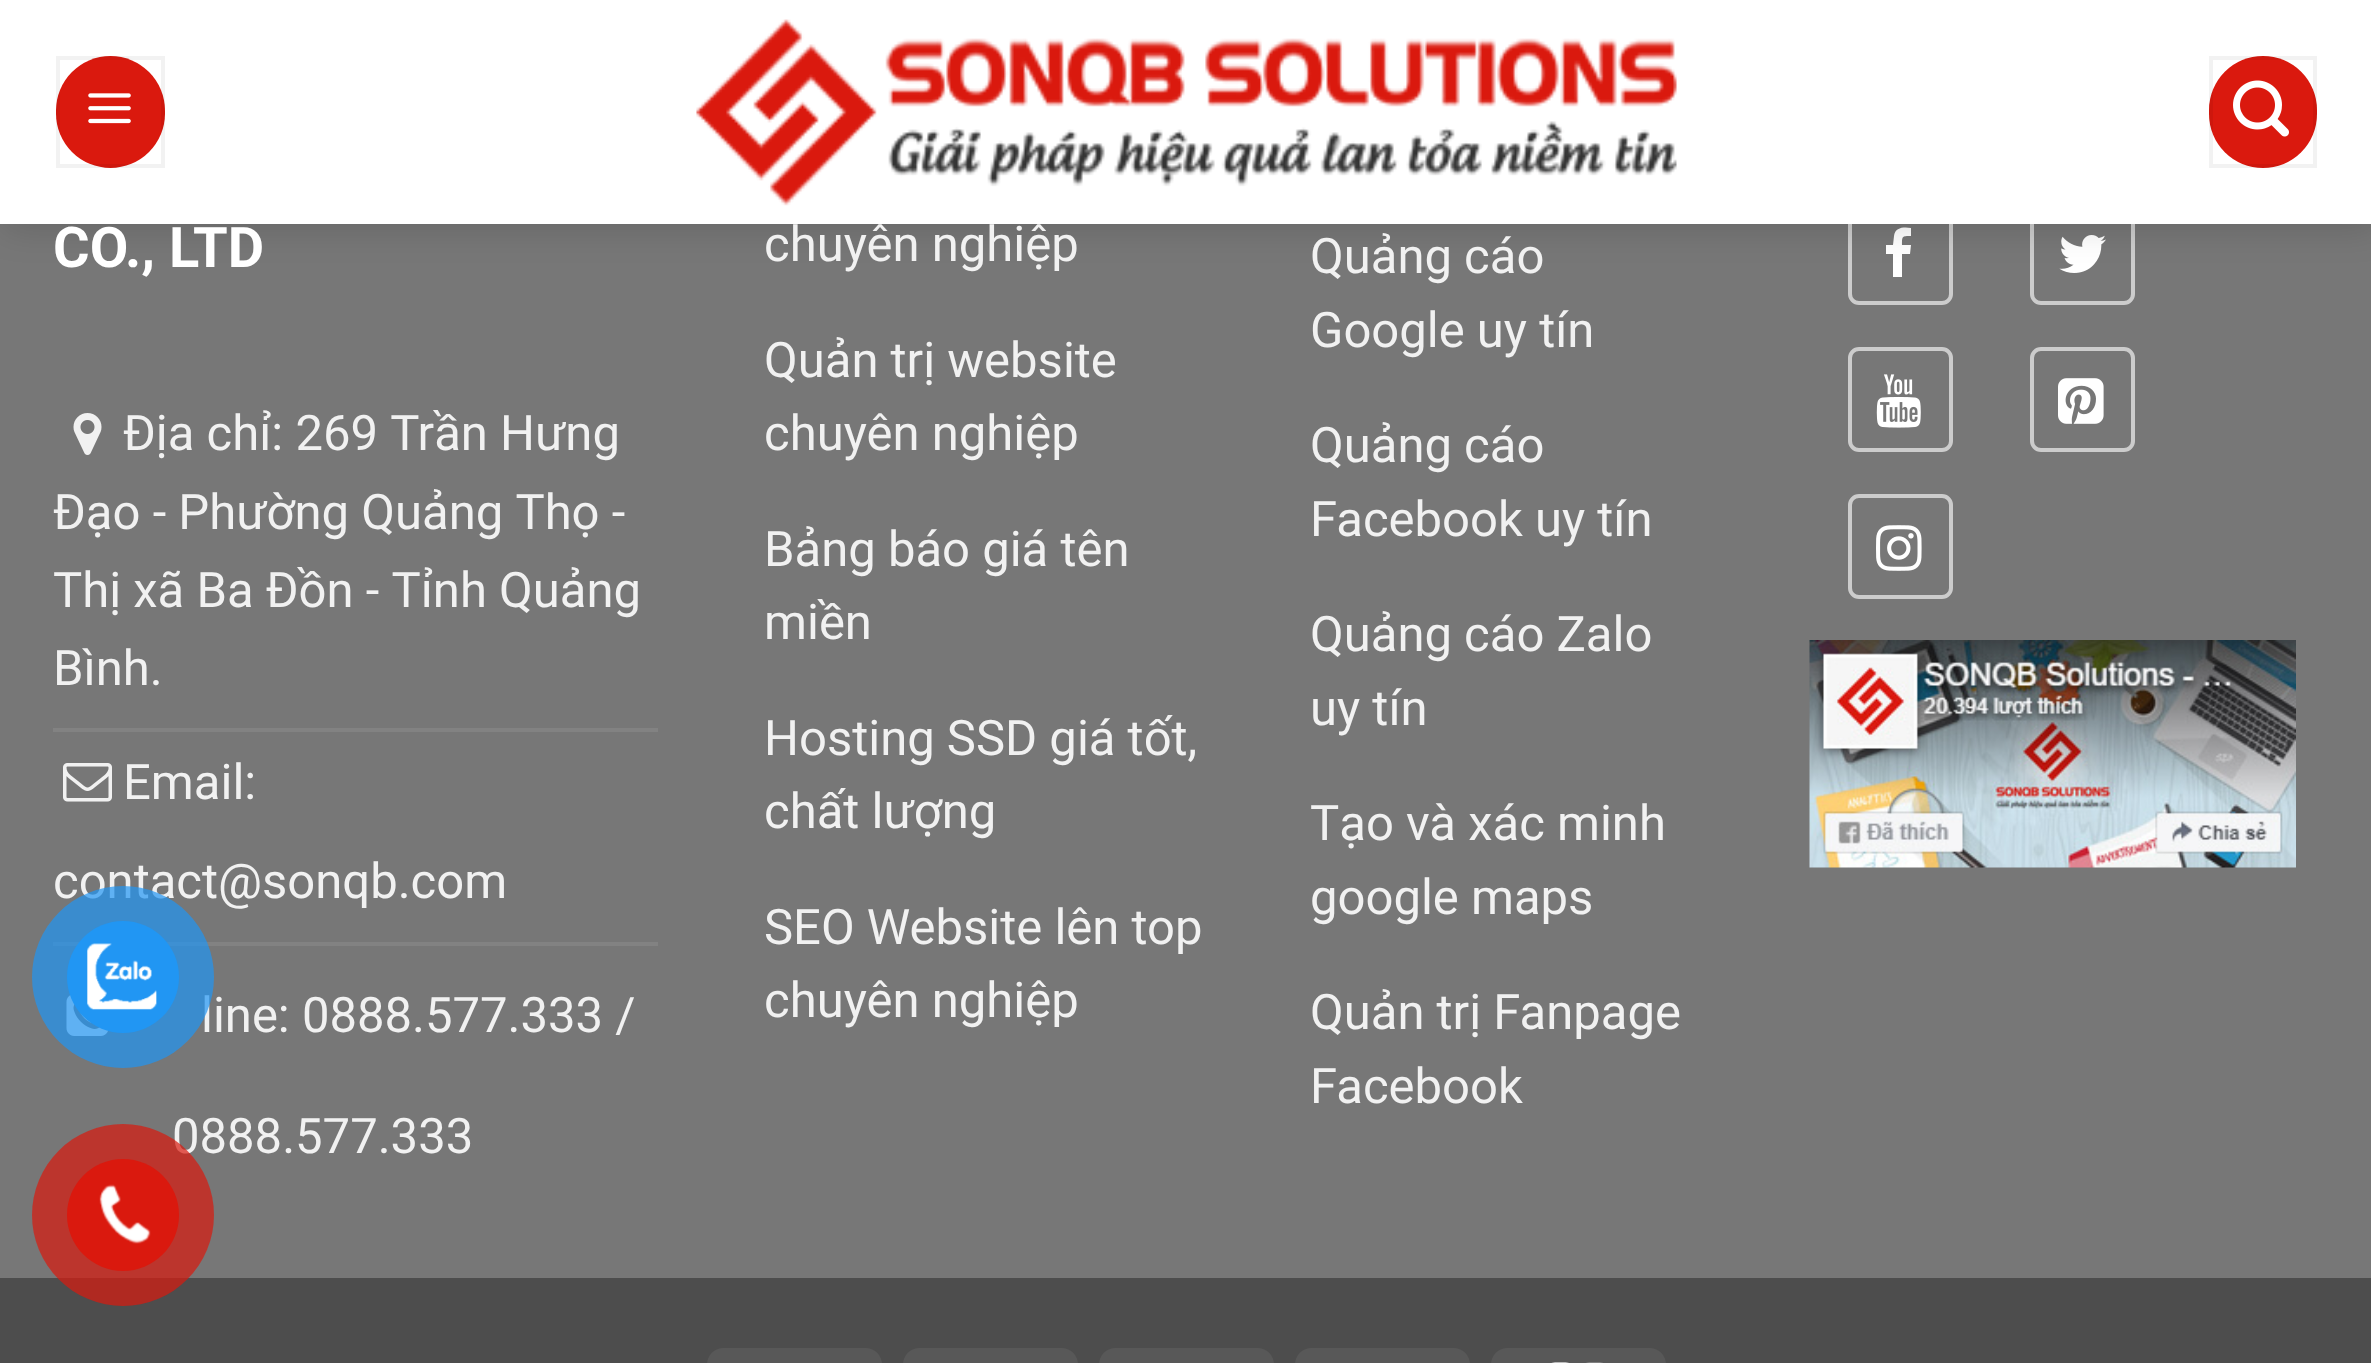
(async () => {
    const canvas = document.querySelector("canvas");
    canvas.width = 2371;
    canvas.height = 1363;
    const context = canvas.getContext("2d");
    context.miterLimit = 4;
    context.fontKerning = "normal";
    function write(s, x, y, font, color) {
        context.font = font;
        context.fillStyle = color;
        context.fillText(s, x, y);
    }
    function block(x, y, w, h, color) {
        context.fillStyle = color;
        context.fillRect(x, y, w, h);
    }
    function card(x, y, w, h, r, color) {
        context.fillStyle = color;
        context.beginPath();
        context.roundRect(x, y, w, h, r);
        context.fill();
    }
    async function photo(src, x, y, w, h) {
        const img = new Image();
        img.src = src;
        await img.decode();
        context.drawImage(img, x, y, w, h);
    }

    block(0, 0, 2371, 1363, "rgb(119, 119, 119)");
    context.beginPath();
    context.roundRect(1850, 202, 101, 101, 9);
    context.strokeStyle = "rgb(204, 204, 204)";
    context.lineWidth = 4;
    context.stroke();
    context.fillStyle = "rgb(255, 255, 255)";
    context.beginPath();
    context.moveTo(1911, 228);
    context.lineTo(1911, 236);
    context.bezierCurveTo(1902, 236, 1902, 236, 1902, 245);
    context.lineTo(1911, 245);
    context.lineTo(1910, 254);
    context.lineTo(1902, 254);
    context.lineTo(1902, 277);
    context.lineTo(1893, 277);
    context.lineTo(1893, 254);
    context.lineTo(1886, 254);
    context.lineTo(1886, 245);
    context.lineTo(1893, 245);
    context.lineTo(1894, 236);
    context.bezierCurveTo(1895, 227, 1904, 227, 1911, 228);
    context.closePath();
    context.fill();
    context.beginPath();
    context.roundRect(2032, 202, 101, 101, 9);
    context.stroke();
    await photo("media/7.png", 2059, 235, 47, 38);
    context.fillStyle = "rgba(0, 0, 0, 0.15)";
    context.filter = "blur(17.5px)";
    context.beginPath();
    context.rect(4, 4, 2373, 224);
    context.fill();
    context.filter = "none";
    block(0, 0, 2371, 224, "rgb(255, 255, 255)");
    card(56, 56, 109, 112, 54.5, "rgb(218, 25, 14)");
    context.strokeStyle = "rgba(0, 0, 0, 0.05)";
    context.strokeRect(58, 58, 105, 108);
    await photo("media/1.png", 88, 93, 43, 31);
    await photo("media/2.png", 696, 19, 981, 187);
    card(2209, 56, 108, 112, 54, "rgb(218, 25, 14)");
    context.strokeRect(2211, 58, 104, 108);
    await photo("media/3.png", 2233, 80, 56, 57);
    write("CO., LTD", 53, 267, "bold 56px Roboto", "rgb(255, 255, 255)");
    await photo("media/4.png", 73, 413, 29, 42);
    write("Địa chỉ: 269 Trần Hưng", 123, 450, "49px Roboto", "rgb(241, 241, 241)");
    write("Đạo - Phường Quảng Thọ -", 53, 529, "49px Roboto", "rgb(241, 241, 241)");
    write("Thị xã Ba Đồn - Tỉnh Quảng", 53, 607, "49px Roboto", "rgb(241, 241, 241)");
    write("Bình.", 53, 685, "49px Roboto", "rgb(241, 241, 241)");
    block(53, 728, 605, 4, "rgb(130, 130, 130)");
    await photo("media/5.png", 63, 763, 49, 39);
    write("Email:", 123, 799, "49px Roboto", "rgb(241, 241, 241)");
    write("contact@sonqb.com", 53, 898, "49px Roboto", "rgb(241, 241, 241)");
    block(53, 942, 605, 4, "rgb(130, 130, 130)");
    await photo("media/6.png", 66, 995, 43, 41);
    write("line: 0888.577.333 /", 201, 1032, "49px Roboto", "rgb(241, 241, 241)");
    write("0888.577.333", 172, 1153, "49px Roboto", "rgb(241, 241, 241)");
    write("chuyên nghiệp", 764, 261, "49px Roboto", "rgb(241, 241, 241)");
    write("Quản trị website", 764, 377, "49px Roboto", "rgb(241, 241, 241)");
    write("chuyên nghiệp", 764, 450, "49px Roboto", "rgb(241, 241, 241)");
    write("Bảng báo giá tên", 764, 566, "49px Roboto", "rgb(241, 241, 241)");
    write("miền", 764, 639, "49px Roboto", "rgb(241, 241, 241)");
    write("Hosting SSD giá tốt,", 764, 755, "49px Roboto", "rgb(241, 241, 241)");
    write("chất lượng", 764, 828, "49px Roboto", "rgb(241, 241, 241)");
    write("SEO Website lên top", 764, 944, "49px Roboto", "rgb(241, 241, 241)");
    write("chuyên nghiệp", 764, 1017, "49px Roboto", "rgb(241, 241, 241)");
    write("Quảng cáo", 1310, 273, "49px Roboto", "rgb(241, 241, 241)");
    write("Google uy tín", 1310, 347, "49px Roboto", "rgb(241, 241, 241)");
    write("Quảng cáo", 1310, 462, "49px Roboto", "rgb(241, 241, 241)");
    write("Facebook uy tín", 1310, 536, "49px Roboto", "rgb(241, 241, 241)");
    write("Quảng cáo Zalo", 1310, 651, "49px Roboto", "rgb(241, 241, 241)");
    write("uy tín", 1310, 725, "49px Roboto", "rgb(241, 241, 241)");
    write("Tạo và xác minh", 1310, 840, "49px Roboto", "rgb(241, 241, 241)");
    write("google maps", 1310, 914, "49px Roboto", "rgb(241, 241, 241)");
    write("Quản trị Fanpage", 1310, 1029, "49px Roboto", "rgb(241, 241, 241)");
    write("Facebook", 1310, 1103, "49px Roboto", "rgb(241, 241, 241)");
    context.beginPath();
    context.roundRect(1850, 349, 101, 101, 9);
    context.strokeStyle = "rgb(204, 204, 204)";
    context.stroke();
    await photo("media/8.png", 1876, 374, 45, 54);
    context.beginPath();
    context.roundRect(2032, 349, 101, 101, 9);
    context.stroke();
    await photo("media/9.png", 2058, 378, 46, 46);
    context.beginPath();
    context.roundRect(1850, 496, 101, 101, 9);
    context.stroke();
    await photo("media/10.png", 1876, 525, 46, 46);
    await photo("media/11.png", 1809, 640, 487, 228);
    block(0, 1278, 2371, 85, "rgb(77, 77, 77)");
    card(707, 1348, 175, 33, 18, "rgb(88, 88, 88)");
    card(903, 1348, 175, 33, 18, "rgb(88, 88, 88)");
    card(1099, 1348, 175, 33, 18, "rgb(88, 88, 88)");
    card(1295, 1348, 175, 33, 18, "rgb(88, 88, 88)");
    card(1491, 1348, 175, 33, 18, "rgb(88, 88, 88)");
    await photo("media/12.png", 1551, 1362, 52, 1);
    context.fillStyle = "rgba(33, 150, 243, 0.7)";
    context.beginPath();
    context.arc(123, 977, 91, 0, Math.PI * 2);
    context.fill();
    context.fillStyle = "rgb(33, 150, 243)";
    context.beginPath();
    context.arc(123, 977, 56, 0, Math.PI * 2);
    context.fill();
    await photo("media/13.png", 87, 943, 70, 67);
    context.fillStyle = "rgba(218, 25, 14, 0.7)";
    context.beginPath();
    context.arc(123, 1215, 91, 0, Math.PI * 2);
    context.fill();
    context.fillStyle = "rgb(218, 25, 14)";
    context.beginPath();
    context.arc(123, 1215, 56, 0, Math.PI * 2);
    context.fill();
    await photo("media/14.png", 99, 1184, 52, 60);
})();
